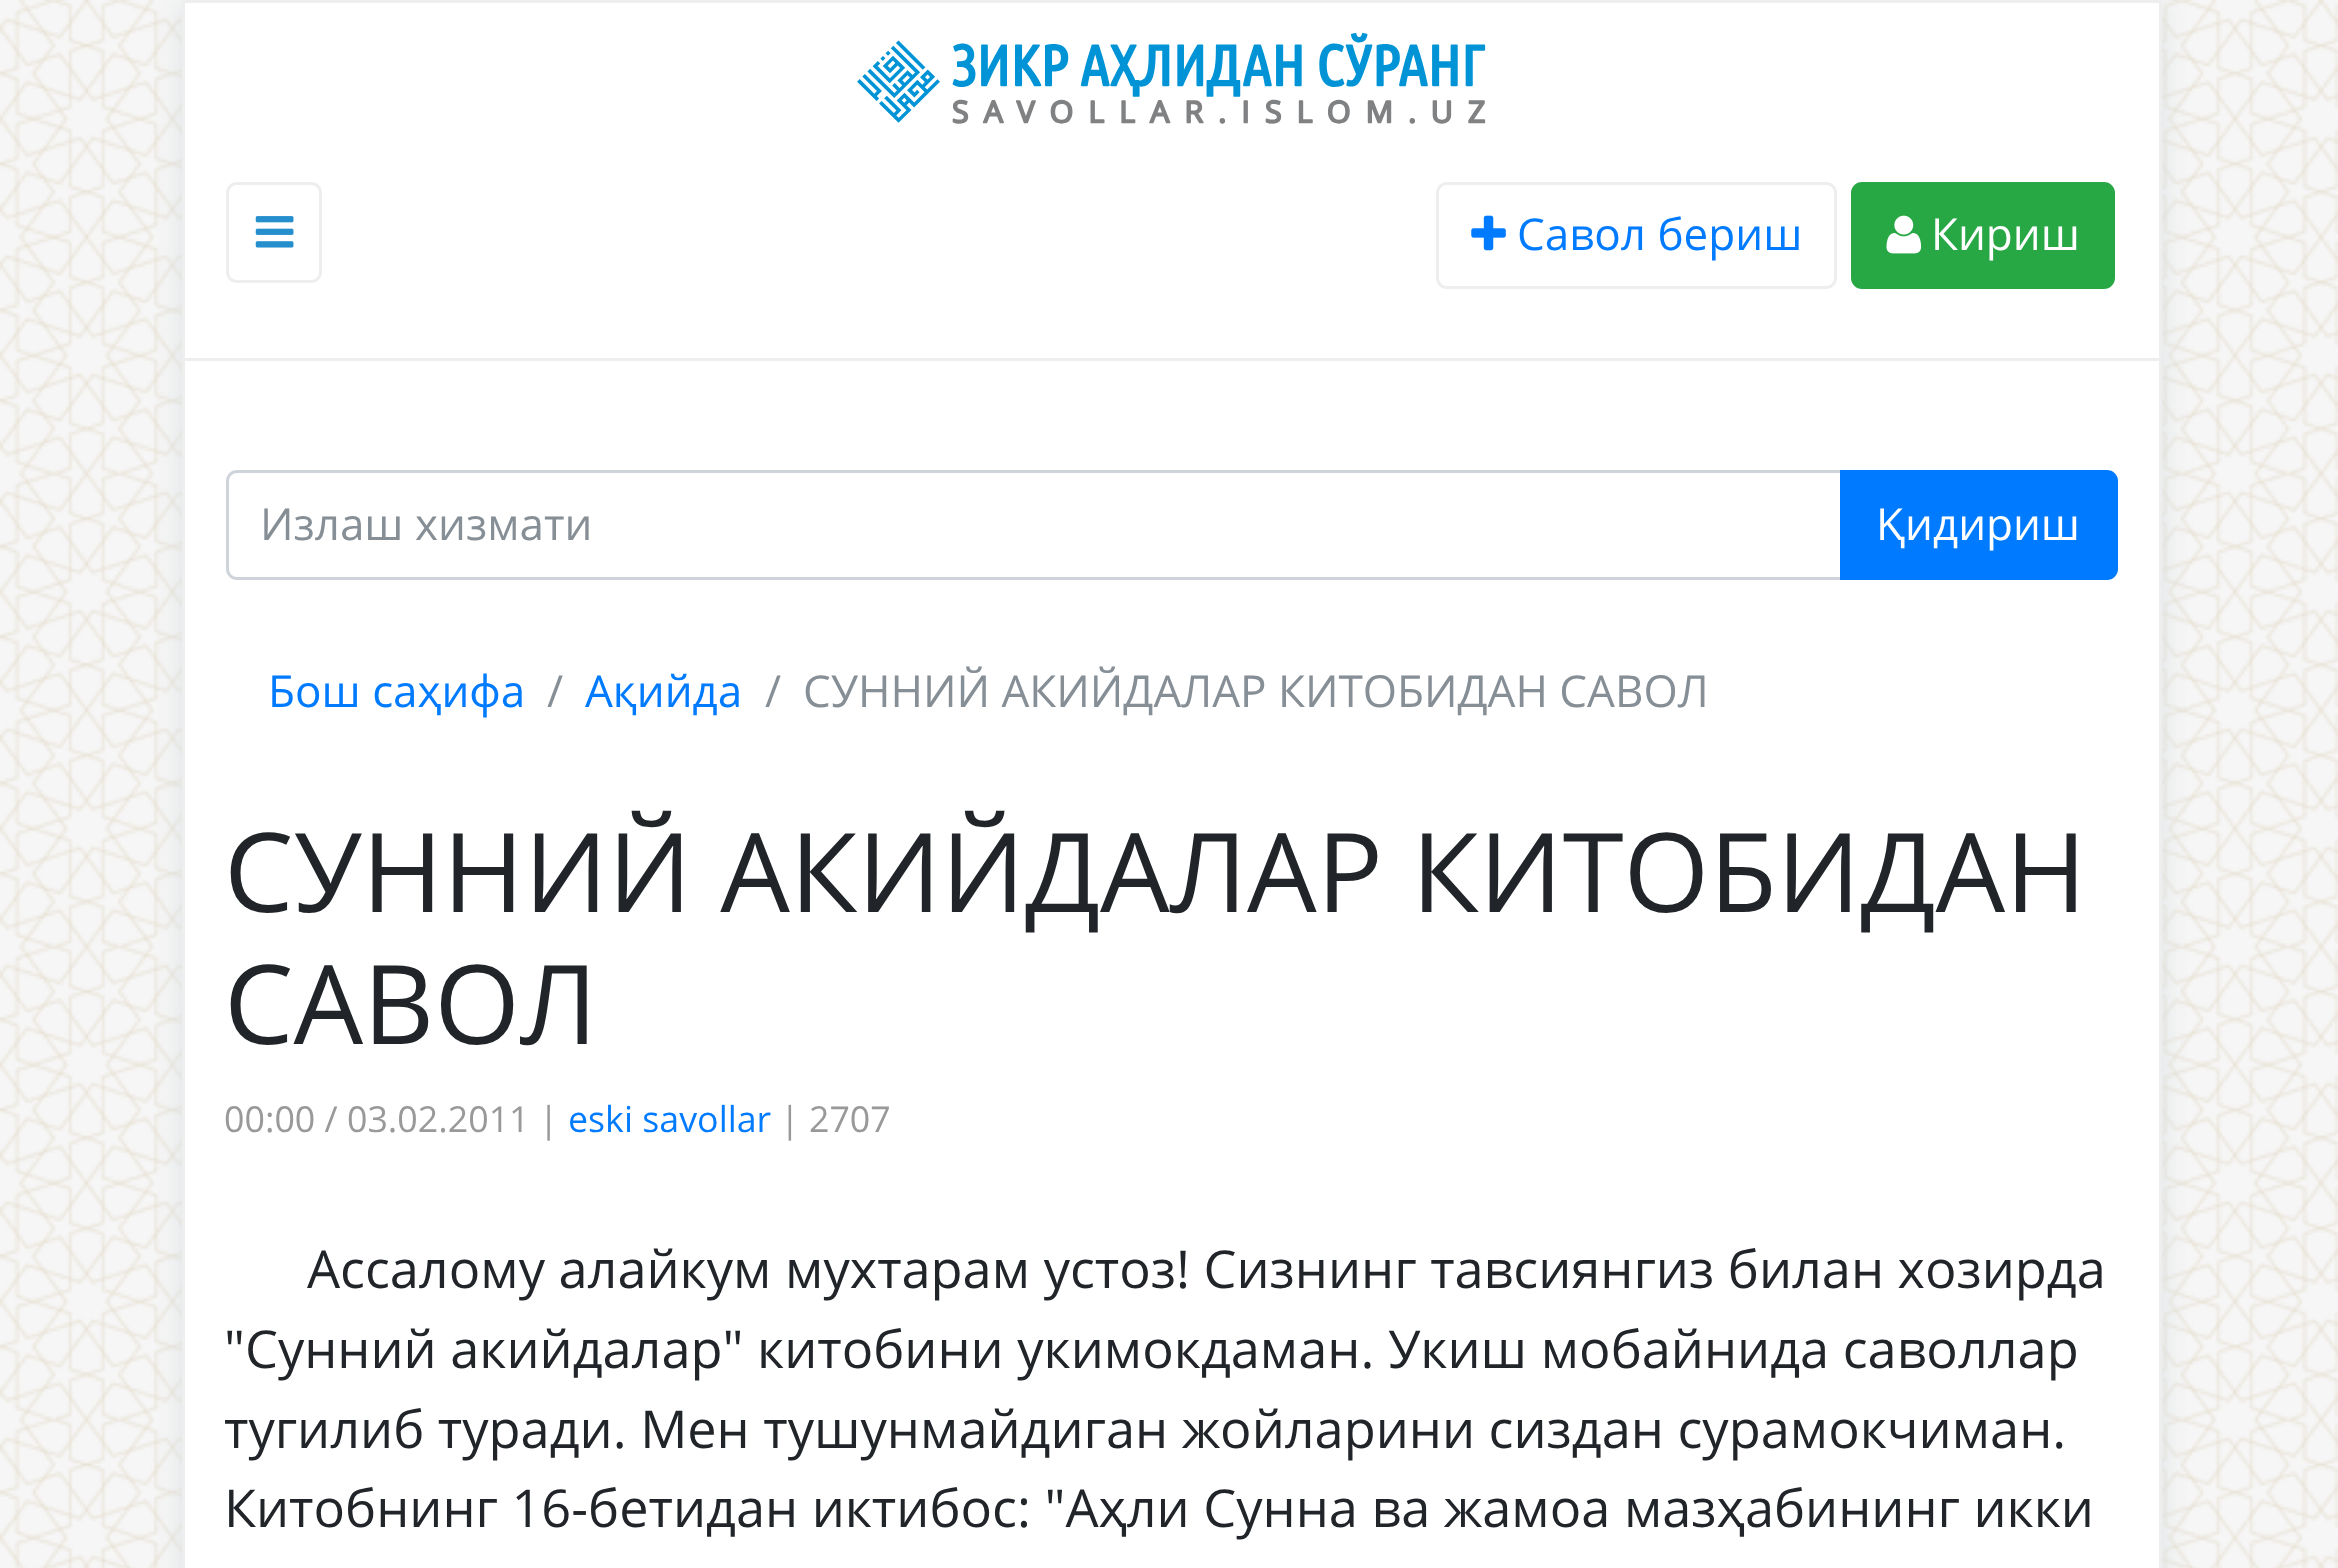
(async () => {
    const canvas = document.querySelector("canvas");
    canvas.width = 2338;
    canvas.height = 1568;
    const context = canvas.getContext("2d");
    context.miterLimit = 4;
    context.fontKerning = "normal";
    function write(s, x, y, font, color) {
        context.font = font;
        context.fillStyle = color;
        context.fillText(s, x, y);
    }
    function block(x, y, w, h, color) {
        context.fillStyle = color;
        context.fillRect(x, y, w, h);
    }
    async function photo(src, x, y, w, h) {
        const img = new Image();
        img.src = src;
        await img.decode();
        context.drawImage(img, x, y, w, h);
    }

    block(0, 0, 2338, 1568, "rgb(242, 242, 242)");
    await photo("media/1.png", 0, 0, 2338, 1568);
    context.fillStyle = "rgb(220, 226, 227)";
    context.filter = "blur(14px)";
    context.beginPath();
    context.rect(182, 3, 1980, 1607);
    context.fill();
    context.filter = "none";
    context.fillStyle = "rgb(255, 255, 255)";
    context.beginPath();
    context.rect(183.5, 1.5, 1977, 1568);
    context.fill();
    context.strokeStyle = "rgb(238, 238, 238)";
    context.lineWidth = 3;
    context.stroke();
    block(184, 358, 1975, 3, "rgb(238, 238, 238)");
    await photo("media/2.png", 857, 32, 629, 92);
    context.beginPath();
    context.roundRect(227.5, 183.5, 93, 98, 9.5);
    context.stroke();
    await photo("media/3.png", 255, 216, 39, 32);
    context.beginPath();
    context.roundRect(1437.5, 183.5, 398, 104, 9.5);
    context.stroke();
    await photo("media/4.png", 1471, 215, 35, 36);
    write("Савол бериш", 1517, 250, "44px Open Sans", "rgb(0, 123, 255)");
    context.fillStyle = "rgb(40, 167, 69)";
    context.beginPath();
    context.roundRect(1852.5, 183.5, 261, 104, 9.5);
    context.fill();
    context.strokeStyle = "rgb(40, 167, 69)";
    context.stroke();
    await photo("media/5.png", 1886, 215, 36, 39);
    write("Кириш", 1931, 250, "44px Open Sans", "rgb(255, 255, 255)");
    context.beginPath();
    context.roundRect(227.5, 471.5, 1614, 107, [9.5, 0, 0, 9.5]);
    context.strokeStyle = "rgb(206, 212, 218)";
    context.stroke();
    write("Излаш хизмати", 260, 540, "44px Open Sans", "rgb(134, 142, 150)");
    context.fillStyle = "rgb(0, 123, 255)";
    context.beginPath();
    context.roundRect(1841.5, 471.5, 275, 107, [0, 9.5, 9.5, 0]);
    context.fill();
    context.strokeStyle = "rgb(0, 123, 255)";
    context.stroke();
    write("Қидириш", 1876, 540, "44px Open Sans", "rgb(255, 255, 255)");
    write("Бош саҳифа", 268, 707, "44px Open Sans", "rgb(0, 123, 255)");
    write("/", 547, 707, "44px Open Sans", "rgb(134, 142, 150)");
    write("Ақийда", 585, 707, "44px Open Sans", "rgb(0, 123, 255)");
    write("/", 765, 707, "44px Open Sans", "rgb(134, 142, 150)");
    write("СУННИЙ АКИЙДАЛАР КИТОБИДАН САВОЛ", 803, 707, "44px Open Sans", "rgb(134, 142, 150)");
    write("СУННИЙ АКИЙДАЛАР КИТОБИДАН", 224, 912, "110px Open Sans", "rgb(33, 37, 41)");
    write("САВОЛ", 224, 1044, "110px Open Sans", "rgb(33, 37, 41)");
    write("00:00 / 03.02.2011 |", 224, 1132, "35.75px Open Sans", "rgb(153, 153, 153)");
    write("eski savollar", 568, 1132, "35.75px Open Sans", "rgb(0, 123, 255)");
    write("| 2707", 780, 1132, "35.75px Open Sans", "rgb(153, 153, 153)");
    write("Ассалому алайкум мухтарам устоз! Сизнинг тавсиянгиз билан хозирда", 307, 1288, "52.25px Open Sans", "rgb(33, 37, 41)");
    write("\"Сунний акийдалар\" китобини укимокдаман. Укиш мобайнида саволлар", 224, 1368, "52.25px Open Sans", "rgb(33, 37, 41)");
    write("тугилиб туради. Мен тушунмайдиган жойларини сиздан сурамокчиман.", 224, 1448, "52.25px Open Sans", "rgb(33, 37, 41)");
    write("Китобнинг 16-бетидан иктибос: \"Аҳли Сунна ва жамоа мазҳабининг икки", 224, 1527, "52.25px Open Sans", "rgb(33, 37, 41)");
})();
